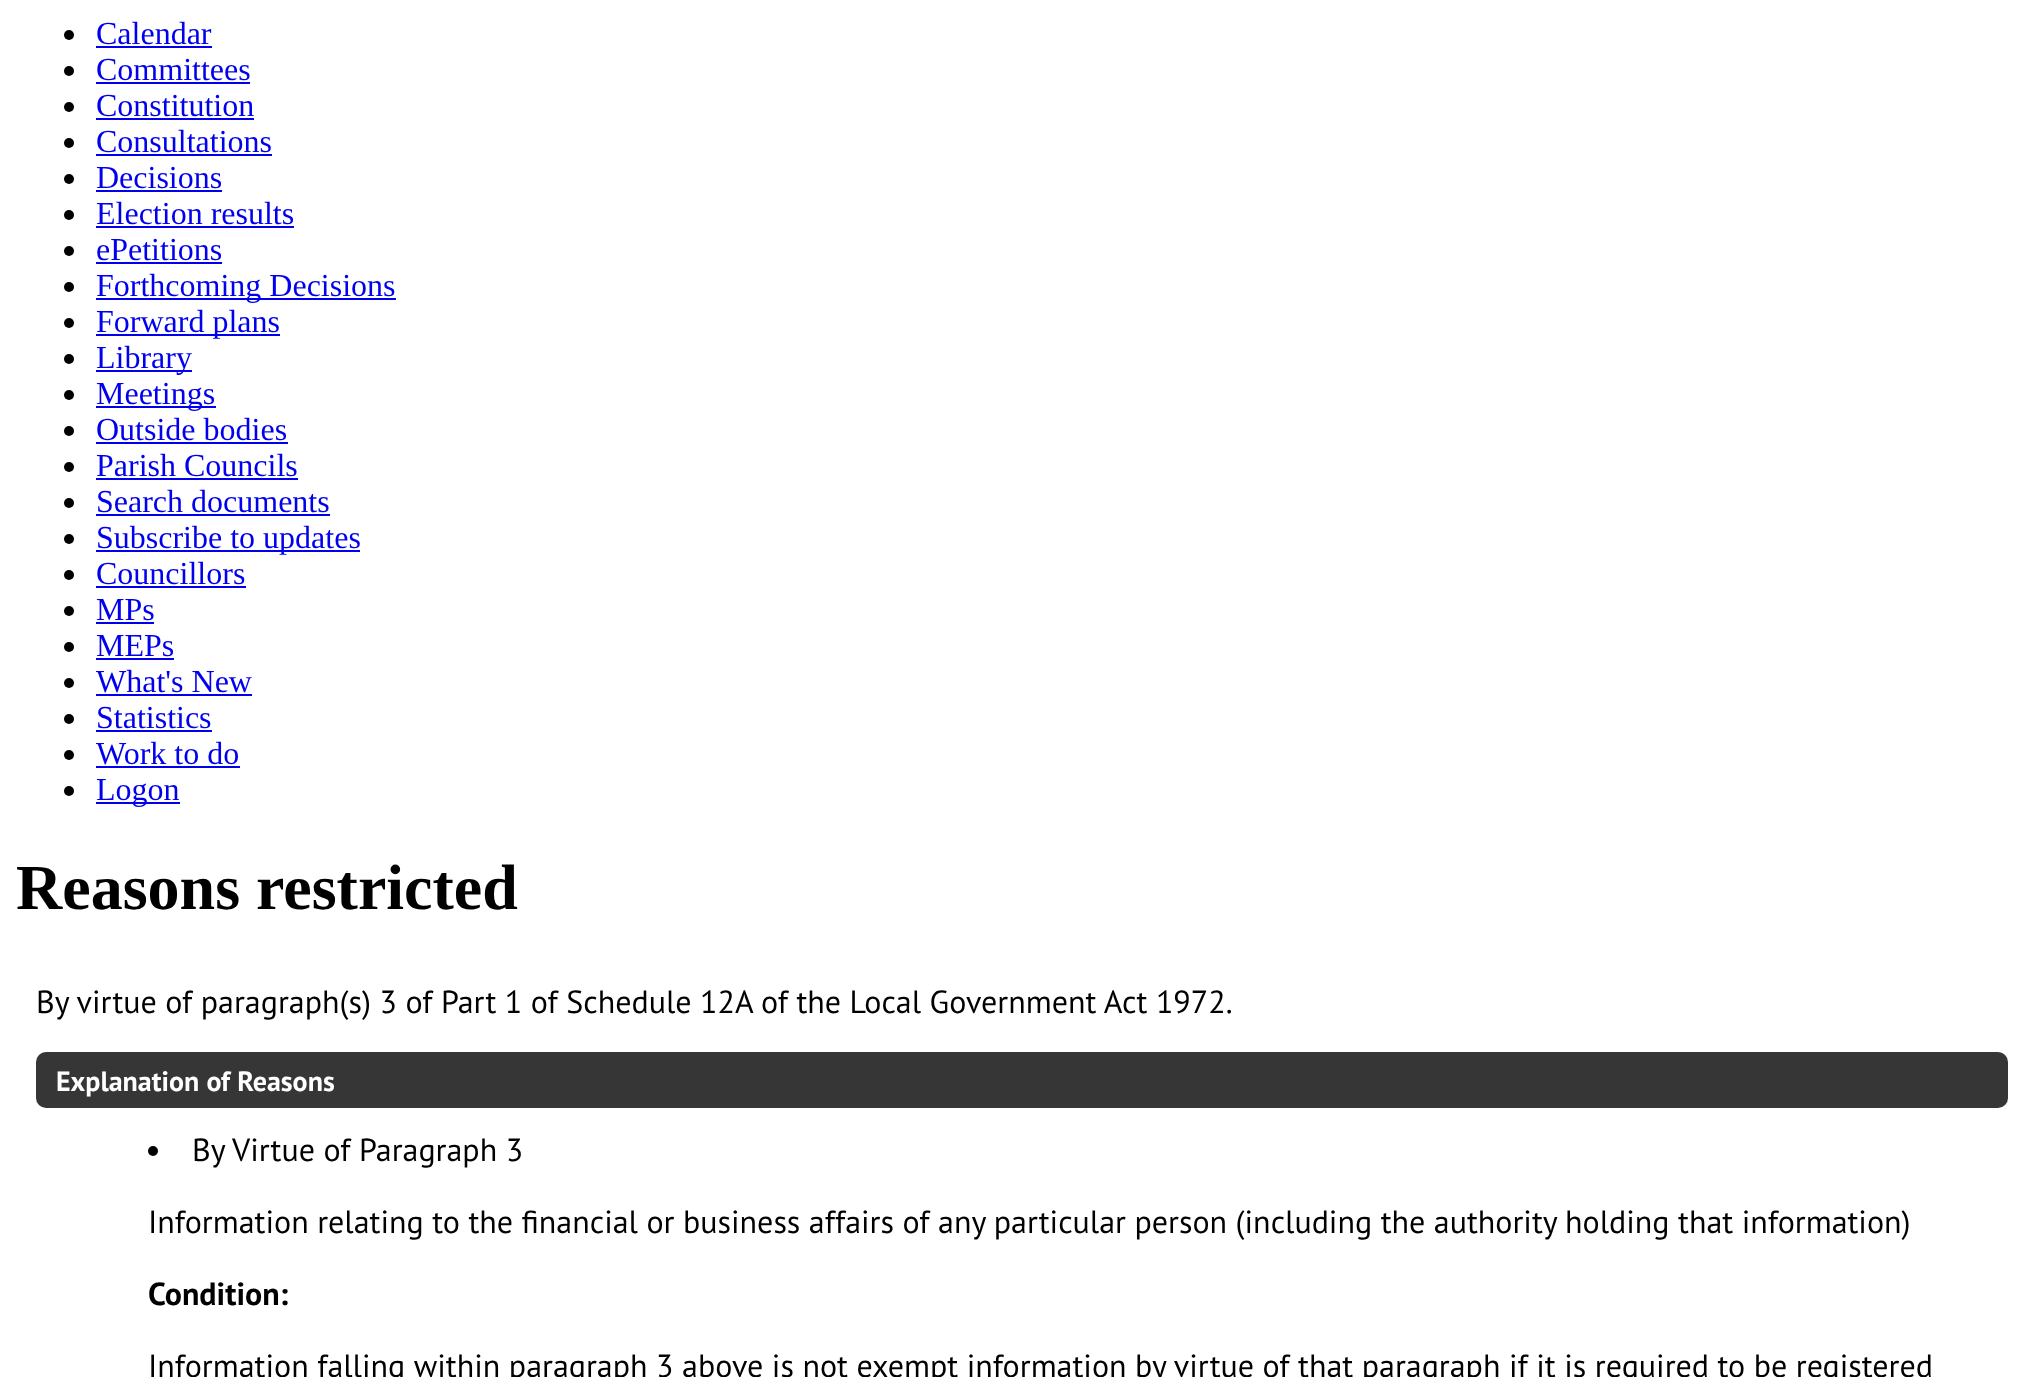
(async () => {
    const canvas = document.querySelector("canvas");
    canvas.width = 2023;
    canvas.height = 1377;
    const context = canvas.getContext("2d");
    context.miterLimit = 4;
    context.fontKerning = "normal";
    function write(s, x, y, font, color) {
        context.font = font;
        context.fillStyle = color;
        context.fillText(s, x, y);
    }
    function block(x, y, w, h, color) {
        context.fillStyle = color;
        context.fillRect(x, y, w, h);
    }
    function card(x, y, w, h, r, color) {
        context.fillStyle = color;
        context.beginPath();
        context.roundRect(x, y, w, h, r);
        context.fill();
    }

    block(0, 0, 2023, 1377, "rgb(255, 255, 255)");
    context.fillStyle = "rgb(0, 0, 0)";
    context.beginPath();
    context.arc(69, 35, 5, 0, Math.PI * 2);
    context.fill();
    write("Calendar", 96, 44, "32px Liberation Serif", "rgb(0, 0, 238)");
    block(96, 46, 116, 2, "rgb(0, 0, 238)");
    context.fillStyle = "rgb(0, 0, 0)";
    context.beginPath();
    context.arc(69, 71, 5, 0, Math.PI * 2);
    context.fill();
    write("Committees", 96, 80, "32px Liberation Serif", "rgb(0, 0, 238)");
    block(96, 82, 154, 2, "rgb(0, 0, 238)");
    context.fillStyle = "rgb(0, 0, 0)";
    context.beginPath();
    context.arc(69, 107, 5, 0, Math.PI * 2);
    context.fill();
    write("Constitution", 96, 116, "32px Liberation Serif", "rgb(0, 0, 238)");
    block(96, 118, 158, 2, "rgb(0, 0, 238)");
    context.fillStyle = "rgb(0, 0, 0)";
    context.beginPath();
    context.arc(69, 143, 5, 0, Math.PI * 2);
    context.fill();
    write("Consultations", 96, 152, "32px Liberation Serif", "rgb(0, 0, 238)");
    block(96, 154, 176, 2, "rgb(0, 0, 238)");
    context.fillStyle = "rgb(0, 0, 0)";
    context.beginPath();
    context.arc(69, 179, 5, 0, Math.PI * 2);
    context.fill();
    write("Decisions", 96, 188, "32px Liberation Serif", "rgb(0, 0, 238)");
    block(96, 190, 126, 2, "rgb(0, 0, 238)");
    context.fillStyle = "rgb(0, 0, 0)";
    context.beginPath();
    context.arc(69, 215, 5, 0, Math.PI * 2);
    context.fill();
    write("Election results", 96, 224, "32px Liberation Serif", "rgb(0, 0, 238)");
    block(96, 226, 198, 2, "rgb(0, 0, 238)");
    context.fillStyle = "rgb(0, 0, 0)";
    context.beginPath();
    context.arc(69, 251, 5, 0, Math.PI * 2);
    context.fill();
    write("ePetitions", 96, 260, "32px Liberation Serif", "rgb(0, 0, 238)");
    block(96, 262, 126, 2, "rgb(0, 0, 238)");
    context.fillStyle = "rgb(0, 0, 0)";
    context.beginPath();
    context.arc(69, 287, 5, 0, Math.PI * 2);
    context.fill();
    block(96, 298, 300, 2, "rgb(0, 0, 238)");
    write("Forthcoming Decisions", 96, 296, "32px Liberation Serif", "rgb(0, 0, 238)");
    context.fillStyle = "rgb(0, 0, 0)";
    context.beginPath();
    context.arc(69, 323, 5, 0, Math.PI * 2);
    context.fill();
    block(96, 334, 184, 2, "rgb(0, 0, 238)");
    write("Forward plans", 96, 332, "32px Liberation Serif", "rgb(0, 0, 238)");
    context.fillStyle = "rgb(0, 0, 0)";
    context.beginPath();
    context.arc(69, 359, 5, 0, Math.PI * 2);
    context.fill();
    block(96, 370, 96, 2, "rgb(0, 0, 238)");
    write("Library", 96, 368, "32px Liberation Serif", "rgb(0, 0, 238)");
    context.fillStyle = "rgb(0, 0, 0)";
    context.beginPath();
    context.arc(69, 395, 5, 0, Math.PI * 2);
    context.fill();
    block(96, 406, 120, 2, "rgb(0, 0, 238)");
    write("Meetings", 96, 404, "32px Liberation Serif", "rgb(0, 0, 238)");
    context.fillStyle = "rgb(0, 0, 0)";
    context.beginPath();
    context.arc(69, 431, 5, 0, Math.PI * 2);
    context.fill();
    write("Outside bodies", 96, 440, "32px Liberation Serif", "rgb(0, 0, 238)");
    block(96, 442, 192, 2, "rgb(0, 0, 238)");
    context.fillStyle = "rgb(0, 0, 0)";
    context.beginPath();
    context.arc(69, 467, 5, 0, Math.PI * 2);
    context.fill();
    write("Parish Councils", 96, 476, "32px Liberation Serif", "rgb(0, 0, 238)");
    block(96, 478, 202, 2, "rgb(0, 0, 238)");
    context.fillStyle = "rgb(0, 0, 0)";
    context.beginPath();
    context.arc(69, 503, 5, 0, Math.PI * 2);
    context.fill();
    write("Search documents", 96, 512, "32px Liberation Serif", "rgb(0, 0, 238)");
    block(96, 514, 234, 2, "rgb(0, 0, 238)");
    context.fillStyle = "rgb(0, 0, 0)";
    context.beginPath();
    context.arc(69, 539, 5, 0, Math.PI * 2);
    context.fill();
    block(96, 550, 264, 2, "rgb(0, 0, 238)");
    write("Subscribe to updates", 96, 548, "32px Liberation Serif", "rgb(0, 0, 238)");
    context.fillStyle = "rgb(0, 0, 0)";
    context.beginPath();
    context.arc(69, 575, 5, 0, Math.PI * 2);
    context.fill();
    write("Councillors", 96, 584, "32px Liberation Serif", "rgb(0, 0, 238)");
    block(96, 586, 150, 2, "rgb(0, 0, 238)");
    context.fillStyle = "rgb(0, 0, 0)";
    context.beginPath();
    context.arc(69, 611, 5, 0, Math.PI * 2);
    context.fill();
    write("MPs", 96, 620, "32px Liberation Serif", "rgb(0, 0, 238)");
    block(96, 622, 58, 2, "rgb(0, 0, 238)");
    context.fillStyle = "rgb(0, 0, 0)";
    context.beginPath();
    context.arc(69, 647, 5, 0, Math.PI * 2);
    context.fill();
    write("MEPs", 96, 656, "32px Liberation Serif", "rgb(0, 0, 238)");
    block(96, 658, 78, 2, "rgb(0, 0, 238)");
    context.fillStyle = "rgb(0, 0, 0)";
    context.beginPath();
    context.arc(69, 683, 5, 0, Math.PI * 2);
    context.fill();
    write("What's New", 96, 692, "32px Liberation Serif", "rgb(0, 0, 238)");
    block(96, 694, 156, 2, "rgb(0, 0, 238)");
    context.fillStyle = "rgb(0, 0, 0)";
    context.beginPath();
    context.arc(69, 719, 5, 0, Math.PI * 2);
    context.fill();
    write("Statistics", 96, 728, "32px Liberation Serif", "rgb(0, 0, 238)");
    block(96, 730, 116, 2, "rgb(0, 0, 238)");
    context.fillStyle = "rgb(0, 0, 0)";
    context.beginPath();
    context.arc(69, 755, 5, 0, Math.PI * 2);
    context.fill();
    write("Work to do", 96, 764, "32px Liberation Serif", "rgb(0, 0, 238)");
    block(96, 766, 144, 2, "rgb(0, 0, 238)");
    context.fillStyle = "rgb(0, 0, 0)";
    context.beginPath();
    context.arc(69, 791, 5, 0, Math.PI * 2);
    context.fill();
    block(96, 802, 84, 2, "rgb(0, 0, 238)");
    write("Logon", 96, 800, "32px Liberation Serif", "rgb(0, 0, 238)");
    write("Reasons restricted", 16, 909, "bold 64px Liberation Serif", "rgb(0, 0, 0)");
    write("By virtue of paragraph(s) 3 of Part 1 of Schedule 12A of the Local Government Act 1972.", 36, 1013, "32px PT Sans", "rgb(0, 0, 0)");
    card(36, 1052, 1972, 56, 10, "rgb(54, 54, 54)");
    write("Explanation of Reasons", 56, 1091, "bold 28px PT Sans", "rgb(255, 255, 255)");
    context.fillStyle = "rgb(0, 0, 0)";
    context.beginPath();
    context.arc(153, 1151, 5, 0, Math.PI * 2);
    context.fill();
    write("By Virtue of Paragraph 3", 192, 1161, "32px PT Sans", "rgb(0, 0, 0)");
    write("Information relating to the financial or business affairs of any particular person (including the authority holding that information)", 148, 1233, "32px PT Sans", "rgb(0, 0, 0)");
    write("Condition:", 148, 1305, "bold 32px PT Sans", "rgb(0, 0, 0)");
    write("Information falling within paragraph 3 above is not exempt information by virtue of that paragraph if it is required to be registered", 148, 1377, "32px PT Sans", "rgb(0, 0, 0)");
})();
